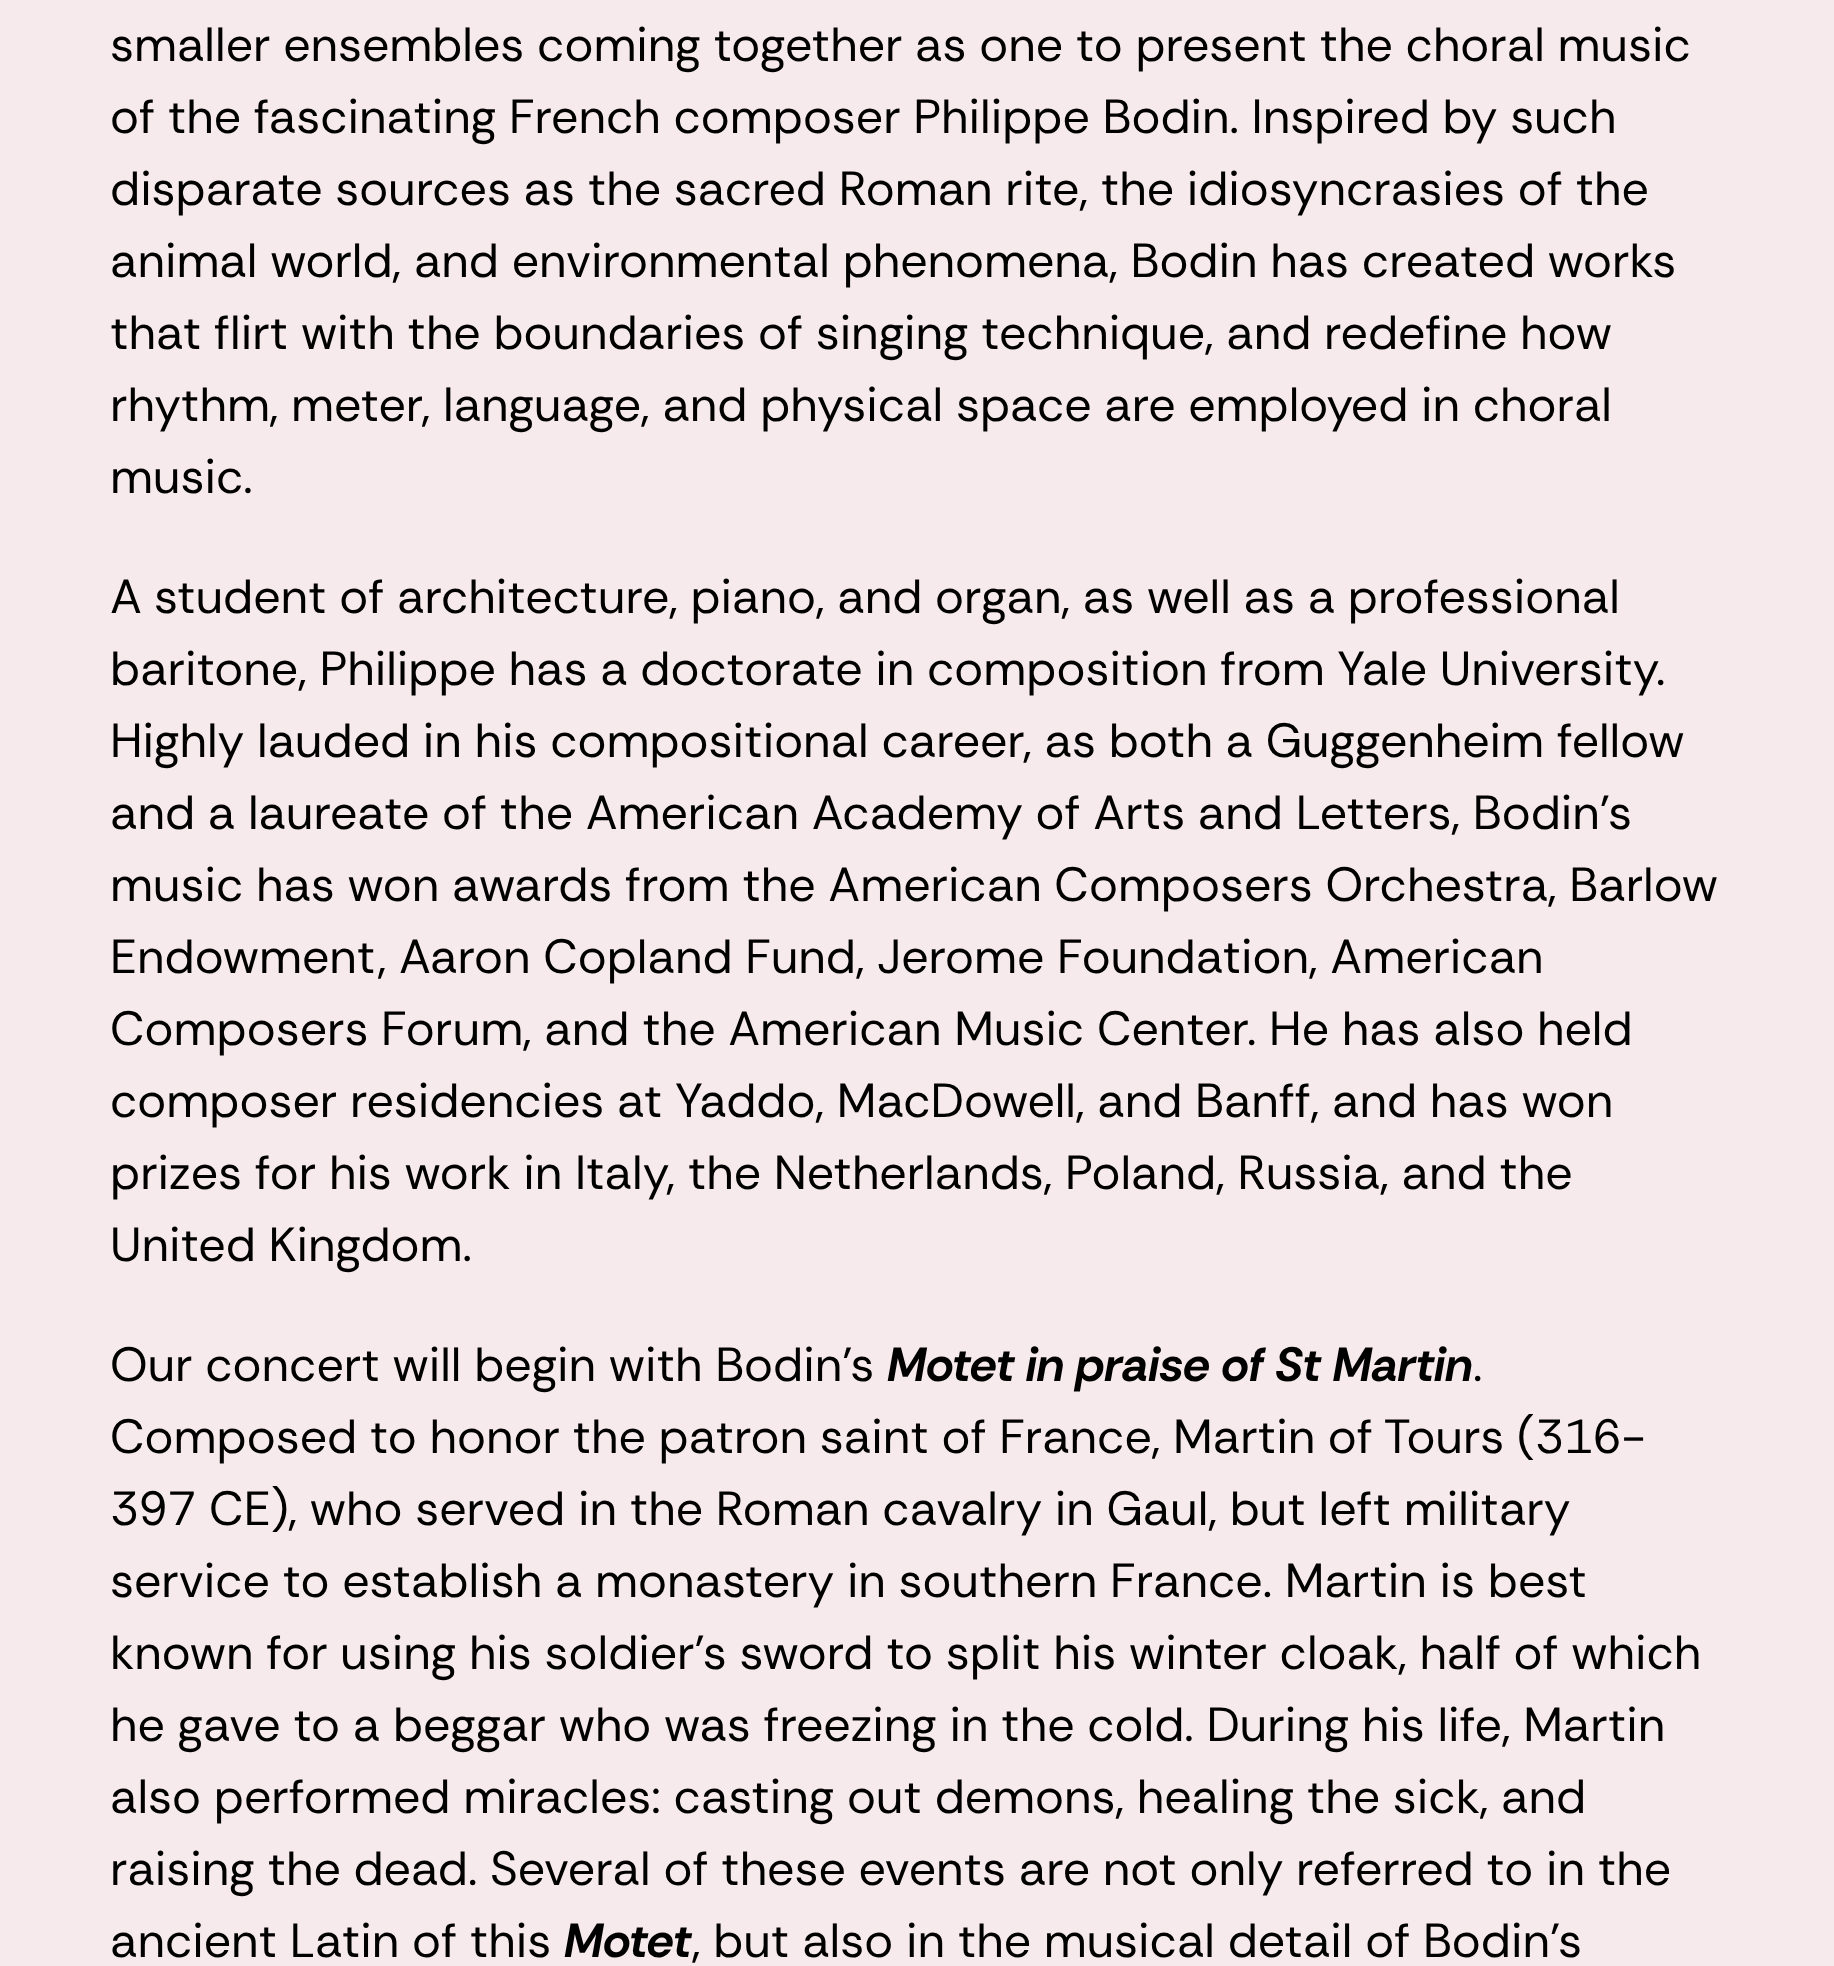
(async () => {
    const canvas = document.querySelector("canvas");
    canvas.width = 1834;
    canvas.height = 1966;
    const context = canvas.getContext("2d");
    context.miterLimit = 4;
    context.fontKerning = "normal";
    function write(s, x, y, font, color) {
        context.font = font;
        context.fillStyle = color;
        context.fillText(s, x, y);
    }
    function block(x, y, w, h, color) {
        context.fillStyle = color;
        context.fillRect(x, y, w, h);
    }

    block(0, 0, 1834, 1966, "rgb(246, 234, 236)");
    write("smaller ensembles coming together as one to present the choral music", 110, 61, "48px Rethink Sans", "rgb(0, 0, 0)");
    write("of the fascinating French composer Philippe Bodin. Inspired by such", 110, 133, "48px Rethink Sans", "rgb(0, 0, 0)");
    write("disparate sources as the sacred Roman rite, the idiosyncrasies of the", 110, 205, "48px Rethink Sans", "rgb(0, 0, 0)");
    write("animal world, and environmental phenomena, Bodin has created works", 110, 277, "48px Rethink Sans", "rgb(0, 0, 0)");
    write("that flirt with the boundaries of singing technique, and redefine how", 110, 349, "48px Rethink Sans", "rgb(0, 0, 0)");
    write("rhythm, meter, language, and physical space are employed in choral", 110, 421, "48px Rethink Sans", "rgb(0, 0, 0)");
    write("music.", 110, 493, "48px Rethink Sans", "rgb(0, 0, 0)");
    write("A student of architecture, piano, and organ, as well as a professional", 110, 613, "48px Rethink Sans", "rgb(0, 0, 0)");
    write("baritone, Philippe has a doctorate in composition from Yale University.", 110, 685, "48px Rethink Sans", "rgb(0, 0, 0)");
    write("Highly lauded in his compositional career, as both a Guggenheim fellow", 110, 757, "48px Rethink Sans", "rgb(0, 0, 0)");
    write("and a laureate of the American Academy of Arts and Letters, Bodin’s", 110, 829, "48px Rethink Sans", "rgb(0, 0, 0)");
    write("music has won awards from the American Composers Orchestra, Barlow", 110, 901, "48px Rethink Sans", "rgb(0, 0, 0)");
    write("Endowment, Aaron Copland Fund, Jerome Foundation, American", 110, 973, "48px Rethink Sans", "rgb(0, 0, 0)");
    write("Composers Forum, and the American Music Center. He has also held", 110, 1045, "48px Rethink Sans", "rgb(0, 0, 0)");
    write("composer residencies at Yaddo, MacDowell, and Banff, and has won", 110, 1117, "48px Rethink Sans", "rgb(0, 0, 0)");
    write("prizes for his work in Italy, the Netherlands, Poland, Russia, and the", 110, 1189, "48px Rethink Sans", "rgb(0, 0, 0)");
    write("United Kingdom.", 110, 1261, "48px Rethink Sans", "rgb(0, 0, 0)");
    write("Our concert will begin with Bodin’s", 110, 1381, "48px Rethink Sans", "rgb(0, 0, 0)");
    write("Motet in praise of St Martin", 887, 1381, "italic bold 48px Rethink Sans", "rgb(0, 0, 0)");
    write(".", 1473, 1381, "48px Rethink Sans", "rgb(0, 0, 0)");
    write("Composed to honor the patron saint of France, Martin of Tours (316-", 110, 1453, "48px Rethink Sans", "rgb(0, 0, 0)");
    write("397 CE), who served in the Roman cavalry in Gaul, but left military", 110, 1525, "48px Rethink Sans", "rgb(0, 0, 0)");
    write("service to establish a monastery in southern France. Martin is best", 110, 1597, "48px Rethink Sans", "rgb(0, 0, 0)");
    write("known for using his soldier’s sword to split his winter cloak, half of which", 110, 1669, "48px Rethink Sans", "rgb(0, 0, 0)");
    write("he gave to a beggar who was freezing in the cold. During his life, Martin", 110, 1741, "48px Rethink Sans", "rgb(0, 0, 0)");
    write("also performed miracles: casting out demons, healing the sick, and", 110, 1813, "48px Rethink Sans", "rgb(0, 0, 0)");
    write("raising the dead. Several of these events are not only referred to in the", 110, 1885, "48px Rethink Sans", "rgb(0, 0, 0)");
    write("ancient Latin of this", 110, 1957, "48px Rethink Sans", "rgb(0, 0, 0)");
    write("Motet", 564, 1957, "italic bold 48px Rethink Sans", "rgb(0, 0, 0)");
    write(", but also in the musical detail of Bodin’s", 692, 1957, "48px Rethink Sans", "rgb(0, 0, 0)");
})();
